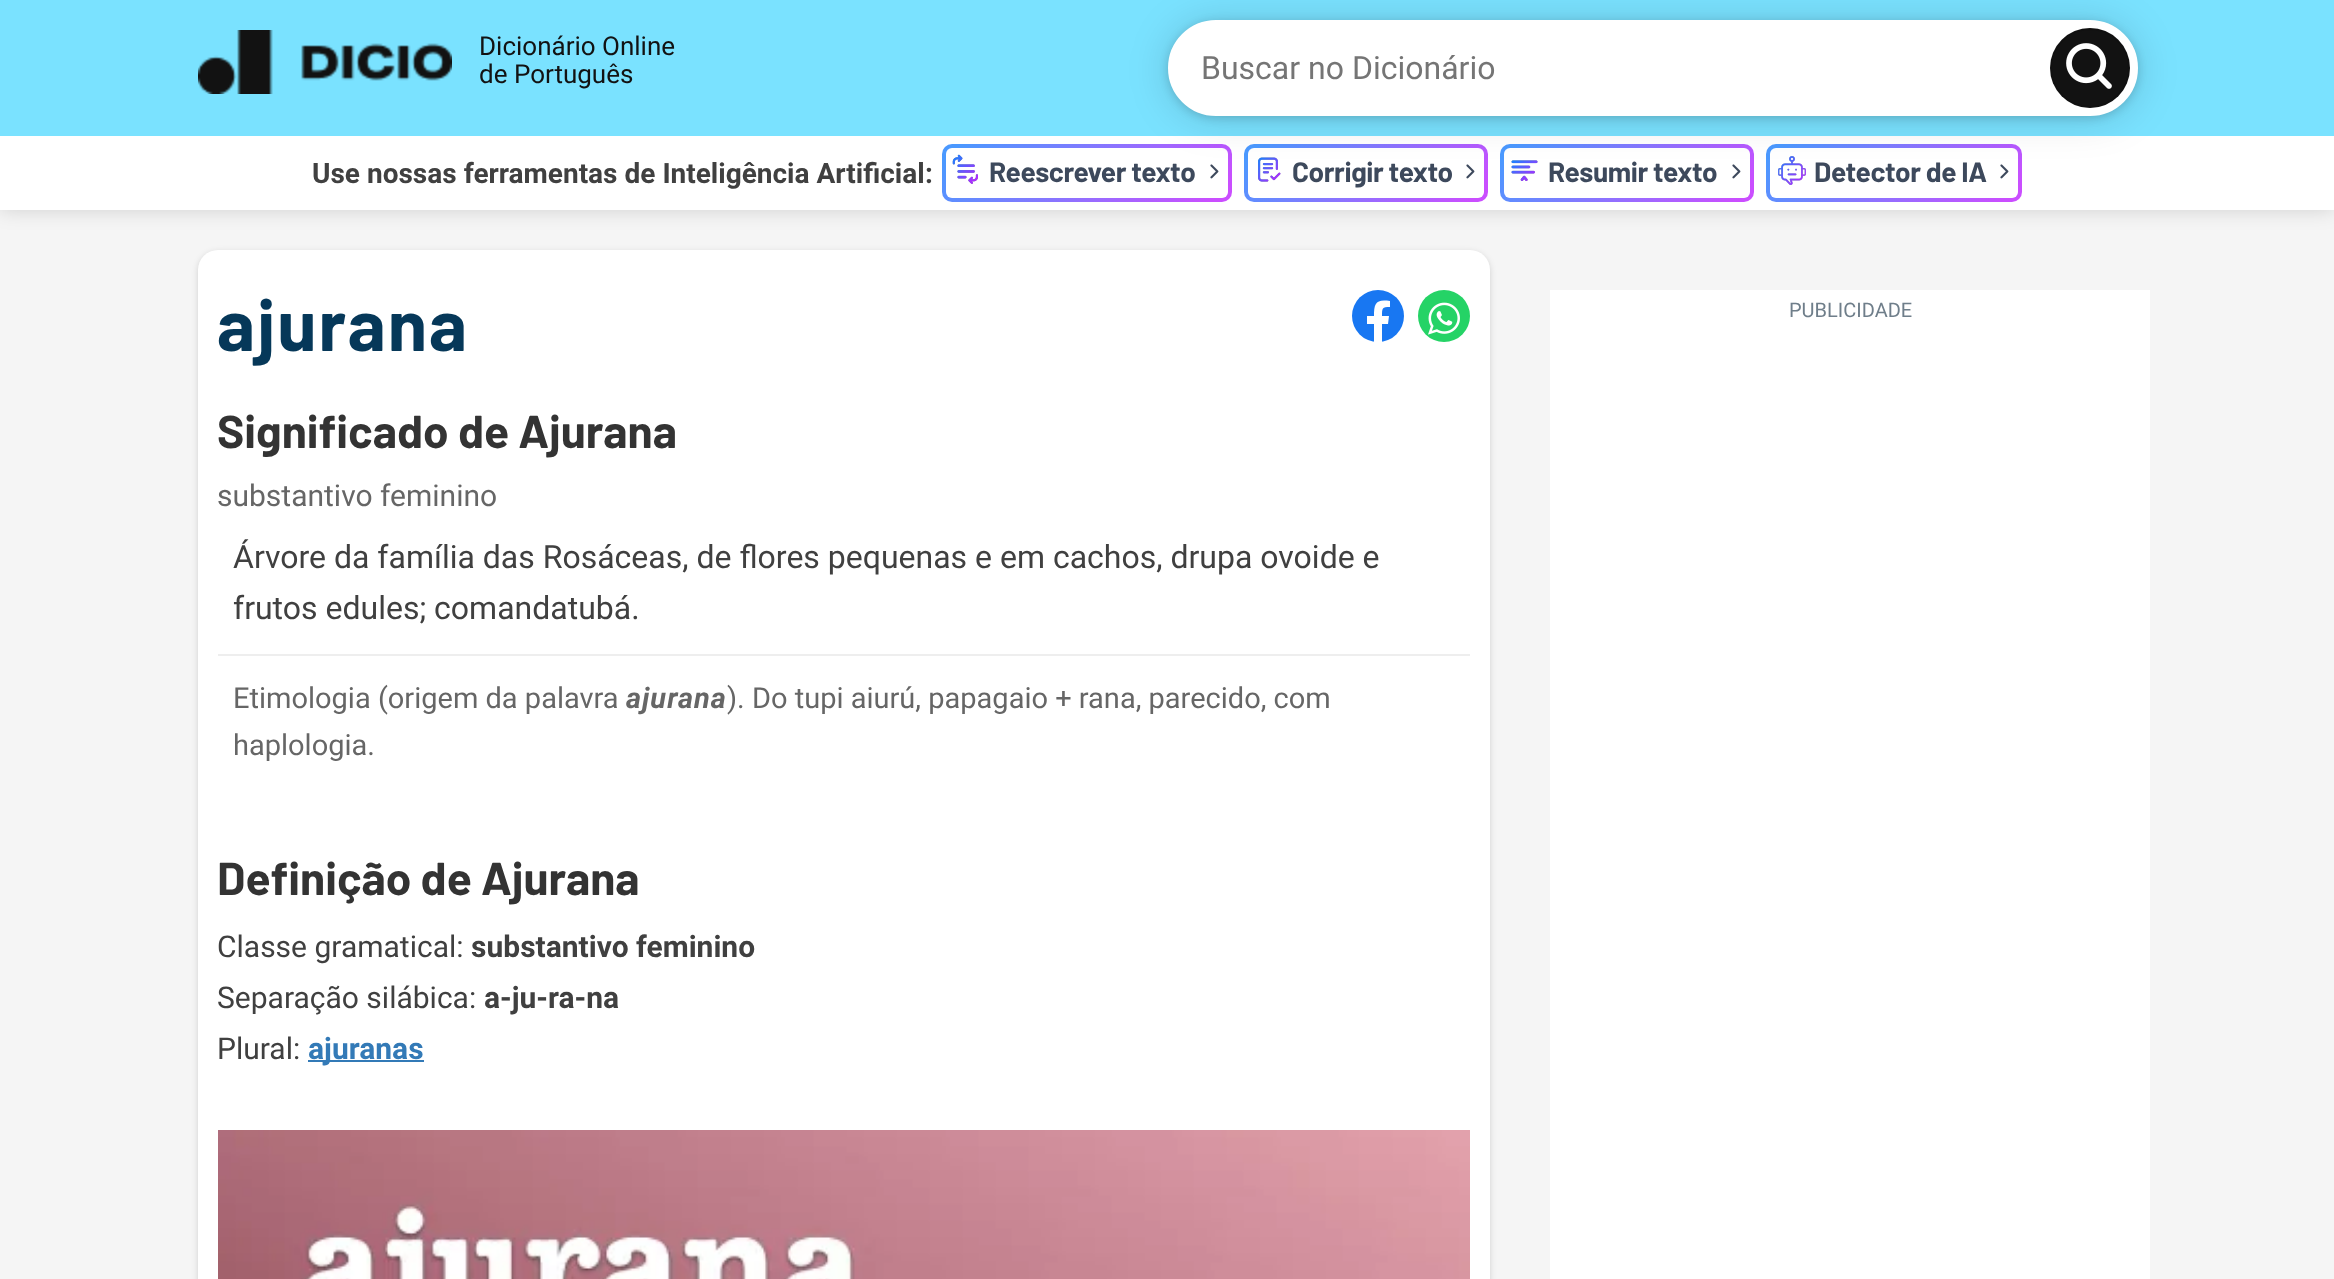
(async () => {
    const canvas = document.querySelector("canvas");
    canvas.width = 2334;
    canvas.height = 1279;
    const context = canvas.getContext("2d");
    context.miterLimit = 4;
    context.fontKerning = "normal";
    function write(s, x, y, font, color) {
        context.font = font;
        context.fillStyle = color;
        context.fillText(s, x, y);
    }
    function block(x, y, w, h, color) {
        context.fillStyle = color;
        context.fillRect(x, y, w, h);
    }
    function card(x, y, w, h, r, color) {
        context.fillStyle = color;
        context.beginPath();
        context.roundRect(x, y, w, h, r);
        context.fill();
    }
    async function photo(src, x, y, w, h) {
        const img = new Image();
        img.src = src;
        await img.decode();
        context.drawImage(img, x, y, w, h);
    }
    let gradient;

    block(0, 0, 2334, 1279, "rgb(245, 245, 245)");
    context.fillStyle = "rgba(0, 0, 0, 0.15)";
    context.filter = "blur(10px)";
    context.beginPath();
    context.rect(0, 136, 2334, 74);
    context.fill();
    context.filter = "none";
    block(0, 0, 2334, 136, "rgb(122, 226, 255)");
    await photo("media/1.png", 198, 30, 254, 64);
    write("Dicionário Online", 479, 55, "26px Roboto", "rgb(18, 18, 18)");
    write("de Português", 479, 83, "26px Roboto", "rgb(18, 18, 18)");
    block(0, 136, 2334, 74, "rgb(255, 255, 255)");
    gradient = context.createLinearGradient(999, 86, 1175, 260);
    gradient.addColorStop(0.05, "rgb(75, 153, 255)");
    gradient.addColorStop(0.94, "rgb(202, 78, 255)");
    context.fillStyle = gradient;
    context.beginPath();
    context.roundRect(942, 144, 290, 58, 10);
    context.fill();
    card(946, 148, 282, 50, 6, "rgb(255, 255, 255)");
    await photo("media/4.png", 1210, 164, 9, 15);
    gradient = context.createLinearGradient(1289, 98, 1443, 248);
    gradient.addColorStop(0.05, "rgb(75, 153, 255)");
    gradient.addColorStop(0.94, "rgb(202, 78, 255)");
    context.fillStyle = gradient;
    context.beginPath();
    context.roundRect(1244, 144, 244, 58, 10);
    context.fill();
    card(1248, 148, 236, 50, 6, "rgb(255, 255, 255)");
    await photo("media/5.png", 1258, 157, 23, 25);
    await photo("media/4.png", 1466, 164, 9, 15);
    gradient = context.createLinearGradient(1548, 95, 1706, 251);
    gradient.addColorStop(0.05, "rgb(75, 153, 255)");
    gradient.addColorStop(0.94, "rgb(202, 78, 255)");
    context.fillStyle = gradient;
    context.beginPath();
    context.roundRect(1500, 144, 254, 58, 10);
    context.fill();
    card(1504, 148, 246, 50, 6, "rgb(255, 255, 255)");
    await photo("media/6.png", 1511, 160, 27, 21);
    await photo("media/4.png", 1732, 164, 9, 15);
    gradient = context.createLinearGradient(1814, 95, 1974, 251);
    gradient.addColorStop(0.05, "rgb(75, 153, 255)");
    gradient.addColorStop(0.94, "rgb(202, 78, 255)");
    context.fillStyle = gradient;
    context.beginPath();
    context.roundRect(1766, 144, 256, 58, 10);
    context.fill();
    card(1770, 148, 248, 50, 6, "rgb(255, 255, 255)");
    await photo("media/7.png", 1778, 156, 28, 29);
    await photo("media/4.png", 2000, 164, 9, 15);
    context.fillStyle = "rgba(0, 0, 0, 0.15)";
    context.filter = "blur(20px)";
    context.beginPath();
    context.roundRect(1168, 22, 970, 96, 48);
    context.fill();
    context.filter = "none";
    context.filter = "blur(5px)";
    context.beginPath();
    context.roundRect(1168, 22, 970, 96, 48);
    context.fill();
    context.filter = "none";
    context.fillStyle = "rgb(255, 255, 255)";
    context.beginPath();
    context.roundRect(1170, 22, 966, 92, 46);
    context.fill();
    context.strokeStyle = "rgb(255, 255, 255)";
    context.lineWidth = 4;
    context.stroke();
    write("Buscar no Dicionário", 1201, 79, "32px Roboto", "rgb(117, 117, 117)");
    context.fillStyle = "rgb(18, 18, 18)";
    context.beginPath();
    context.arc(2090, 68, 40, 0, Math.PI * 2);
    context.fill();
    context.beginPath();
    context.arc(2090, 68, 39, 0, Math.PI * 2);
    context.strokeStyle = "rgba(0, 0, 0, 0.1)";
    context.lineWidth = 2;
    context.stroke();
    await photo("media/2.png", 2066, 43, 46, 46);
    write("Use nossas ferramentas de Inteligência Artificial", 312, 183, "bold 28px Roboto", "rgb(64, 64, 64)");
    write(":", 925, 183, "bold 28px Roboto", "rgb(64, 64, 64)");
    await photo("media/3.png", 952, 154, 26, 30);
    context.letterSpacing = "-0.4px";
    write("Reescrever texto", 989, 182, "bold 28px Barlow", "rgb(61, 73, 92)");
    write("Corrigir texto", 1292, 182, "bold 28px Barlow", "rgb(61, 73, 92)");
    write("Resumir texto", 1548, 182, "bold 28px Barlow", "rgb(61, 73, 92)");
    write("Detector de IA", 1814, 182, "bold 28px Barlow", "rgb(61, 73, 92)");
    context.fillStyle = "rgba(0, 0, 0, 0.15)";
    context.filter = "blur(3px)";
    context.beginPath();
    context.roundRect(198, 252, 1292, 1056, 20);
    context.fill();
    context.filter = "none";
    card(198, 250, 1292, 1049, 20, "rgb(255, 255, 255)");
    context.letterSpacing = "2px";
    write("ajurana", 217, 351, "bold 72px Barlow", "rgb(6, 56, 89)");
    context.fillStyle = "rgb(24, 119, 242)";
    context.beginPath();
    context.arc(1378, 316, 26, 0, Math.PI * 2);
    context.fill();
    context.fillStyle = "rgb(255, 255, 255)";
    context.beginPath();
    context.moveTo(1388, 324);
    context.lineTo(1382, 324);
    context.lineTo(1382, 342);
    context.lineTo(1374, 342);
    context.lineTo(1374, 324);
    context.lineTo(1367, 324);
    context.lineTo(1367, 316);
    context.lineTo(1374, 316);
    context.bezierCurveTo(1374, 303, 1376, 299, 1390, 301);
    context.lineTo(1390, 307);
    context.bezierCurveTo(1382, 307, 1382, 308, 1382, 316);
    context.lineTo(1389, 316);
    context.closePath();
    context.fill();
    context.fillStyle = "rgb(37, 211, 102)";
    context.beginPath();
    context.arc(1444, 316, 26, 0, Math.PI * 2);
    context.fill();
    await photo("media/8.png", 1428, 302, 32, 33);
    context.letterSpacing = "0px";
    write("Significado de Ajurana", 217, 448, "bold 46px Barlow", "rgb(51, 51, 51)");
    write("substantivo feminino", 217, 506, "30px Roboto", "rgb(102, 102, 102)");
    block(218, 654, 1252, 2, "rgb(238, 238, 238)");
    write("Árvore da família das Rosáceas, de flores pequenas e em cachos, drupa ovoide e", 233, 568, "32px Roboto", "rgb(64, 64, 64)");
    write("frutos edules; comandatubá.", 233, 619, "32px Roboto", "rgb(64, 64, 64)");
    write("Etimologia (origem da palavra", 233, 708, "29px Roboto", "rgb(102, 102, 102)");
    context.letterSpacing = "1px";
    write("ajurana", 626, 708, "italic bold 29px Roboto", "rgb(102, 102, 102)");
    context.letterSpacing = "0px";
    write("). Do tupi aiurú, papagaio + rana, parecido, com", 727, 708, "29px Roboto", "rgb(102, 102, 102)");
    write("haplologia.", 233, 755, "29px Roboto", "rgb(102, 102, 102)");
    write("Definição de Ajurana", 217, 895, "bold 46px Barlow", "rgb(51, 51, 51)");
    write("Classe gramatical:", 217, 957, "30px Roboto", "rgb(64, 64, 64)");
    write("substantivo feminino", 471, 957, "bold 30px Roboto", "rgb(64, 64, 64)");
    write("Separação silábica:", 217, 1008, "30px Roboto", "rgb(64, 64, 64)");
    write("a-ju-ra-na", 484, 1008, "bold 30px Roboto", "rgb(64, 64, 64)");
    write("Plural:", 217, 1059, "30px Roboto", "rgb(64, 64, 64)");
    block(308, 1060, 116, 2, "rgb(51, 122, 183)");
    write("ajuranas", 308, 1059, "bold 30px Roboto", "rgb(51, 122, 183)");
    await photo("media/9.png", 218, 1130, 1252, 149);
    block(1550, 290, 600, 989, "rgb(255, 255, 255)");
    write("PUBLICIDADE", 1789, 317, "20px Roboto", "rgb(111, 126, 138)");
})();
